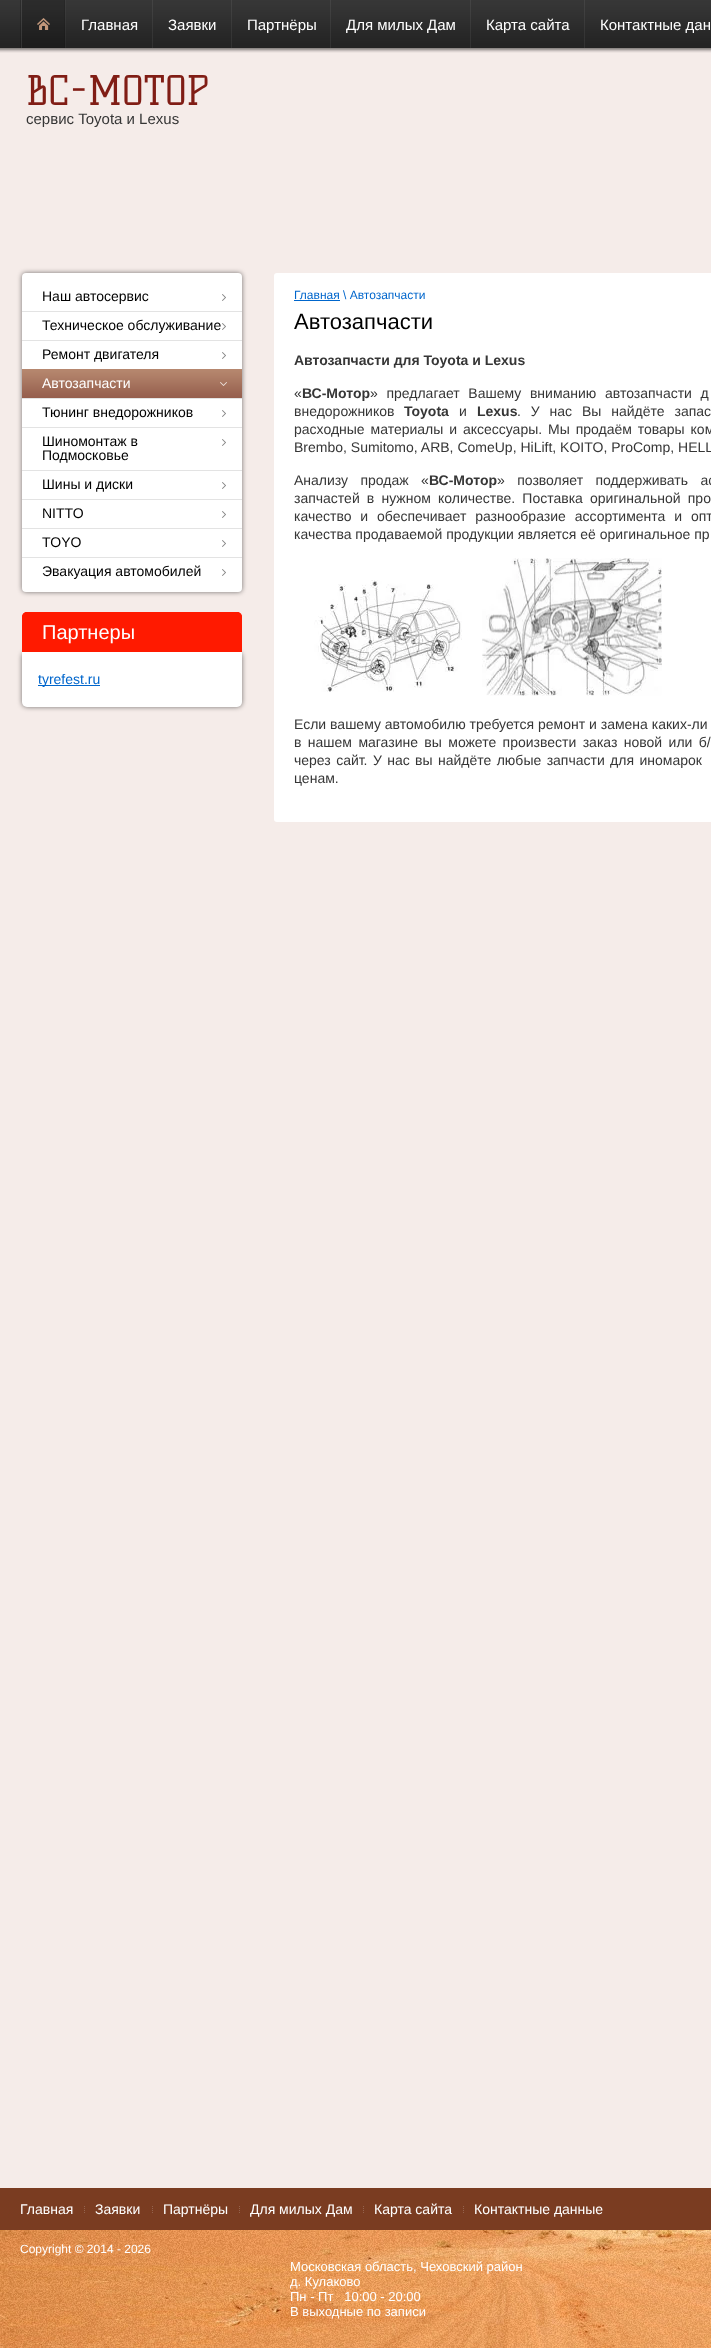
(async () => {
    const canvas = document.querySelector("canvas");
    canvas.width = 711;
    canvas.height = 2348;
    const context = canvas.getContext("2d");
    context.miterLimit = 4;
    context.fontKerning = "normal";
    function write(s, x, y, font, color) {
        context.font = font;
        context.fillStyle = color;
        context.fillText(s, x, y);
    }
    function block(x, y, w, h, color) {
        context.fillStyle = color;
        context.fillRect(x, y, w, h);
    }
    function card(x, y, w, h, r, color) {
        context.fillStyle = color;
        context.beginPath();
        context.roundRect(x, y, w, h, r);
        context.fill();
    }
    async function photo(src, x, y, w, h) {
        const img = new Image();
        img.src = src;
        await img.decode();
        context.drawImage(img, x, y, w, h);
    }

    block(0, 0, 711, 2348, "rgb(245, 236, 233)");
    await photo("media/1.png", 0, 0, 711, 53);
    await photo("media/2.png", 20, 0, 46, 48);
    await photo("media/3.png", 152, 0, 1, 48);
    write("Главная", 81, 30, "15px Liberation Sans", "rgb(255, 255, 255)");
    await photo("media/3.png", 231, 0, 1, 48);
    write("Заявки", 168, 30, "15px Liberation Sans", "rgb(255, 255, 255)");
    await photo("media/3.png", 330, 0, 1, 48);
    write("Партнёры", 247, 30, "15px Liberation Sans", "rgb(255, 255, 255)");
    await photo("media/3.png", 470, 0, 1, 48);
    write("Для милых Дам", 346, 30, "15px Liberation Sans", "rgb(255, 255, 255)");
    await photo("media/3.png", 584, 0, 1, 48);
    write("Карта сайта", 486, 30, "15px Liberation Sans", "rgb(255, 255, 255)");
    write("Контактные дан", 600, 30, "15px Liberation Sans", "rgb(255, 255, 255)");
    write("ВС-МОТОР", 26, 105, "40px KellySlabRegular", "rgb(128, 29, 21)");
    write("сервис Toyota и Lexus", 26, 124, "15px Liberation Sans", "rgb(54, 54, 54)");
    context.fillStyle = "rgba(0, 0, 0, 0.53)";
    context.filter = "blur(2.5px)";
    context.beginPath();
    context.roundRect(22, 273, 220, 319, 4);
    context.fill();
    context.filter = "none";
    card(22, 273, 220, 319, 4, "rgb(255, 255, 255)");
    await photo("media/4.png", 222, 294, 4, 7);
    write("Наш автосервис", 42, 301, "14px Liberation Sans", "rgb(0, 0, 0)");
    block(22, 311, 220, 1, "rgb(227, 227, 227)");
    await photo("media/4.png", 222, 323, 4, 7);
    write("Техническое обслуживание", 42, 330, "14px Liberation Sans", "rgb(0, 0, 0)");
    block(22, 340, 220, 1, "rgb(227, 227, 227)");
    await photo("media/4.png", 222, 352, 4, 7);
    write("Ремонт двигателя", 42, 359, "14px Liberation Sans", "rgb(0, 0, 0)");
    await photo("media/5.png", 22, 369, 220, 29);
    await photo("media/6.png", 220, 382, 7, 4);
    write("Автозапчасти", 42, 388, "14px Liberation Sans", "rgb(255, 255, 255)");
    block(22, 398, 220, 1, "rgb(227, 227, 227)");
    await photo("media/4.png", 222, 410, 4, 7);
    write("Тюнинг внедорожников", 42, 417, "14px Liberation Sans", "rgb(0, 0, 0)");
    block(22, 427, 220, 1, "rgb(227, 227, 227)");
    await photo("media/4.png", 222, 439, 4, 7);
    write("Шиномонтаж в", 42, 446, "14px Liberation Sans", "rgb(0, 0, 0)");
    write("Подмосковье", 42, 460, "14px Liberation Sans", "rgb(0, 0, 0)");
    block(22, 470, 220, 1, "rgb(227, 227, 227)");
    await photo("media/4.png", 222, 482, 4, 7);
    write("Шины и диски", 42, 489, "14px Liberation Sans", "rgb(0, 0, 0)");
    block(22, 499, 220, 1, "rgb(227, 227, 227)");
    await photo("media/4.png", 222, 511, 4, 7);
    write("NITTO", 42, 518, "14px Liberation Sans", "rgb(0, 0, 0)");
    block(22, 528, 220, 1, "rgb(227, 227, 227)");
    await photo("media/4.png", 222, 540, 4, 7);
    write("TOYO", 42, 547, "14px Liberation Sans", "rgb(0, 0, 0)");
    block(22, 557, 220, 1, "rgb(227, 227, 227)");
    await photo("media/4.png", 222, 569, 4, 7);
    write("Эвакуация автомобилей", 42, 576, "14px Liberation Sans", "rgb(0, 0, 0)");
    context.fillStyle = "rgba(0, 0, 0, 0.53)";
    context.filter = "blur(2.5px)";
    context.beginPath();
    context.roundRect(22, 652, 220, 55, 5);
    context.fill();
    context.filter = "none";
    context.fillStyle = "rgb(255, 26, 0)";
    context.beginPath();
    context.roundRect(22, 612, 220, 40, [5, 5, 0, 0]);
    context.fill();
    await photo("media/7.png", 22, 612, 220, 5);
    write("Партнеры", 42, 639, "20px Liberation Sans", "rgb(255, 255, 255)");
    context.beginPath();
    context.roundRect(22, 652, 220, 55, [0, 0, 5, 5]);
    context.fill();
    block(38, 685, 62, 1, "rgb(0, 102, 204)");
    write("tyrefest.ru", 38, 684, "14px Liberation Sans", "rgb(0, 102, 204)");
    card(274, 273, 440, 549, 3, "rgb(255, 255, 255)");
    write("Главная \\ Автозапчасти", 294, 299, "12px Liberation Sans", "rgb(0, 102, 204)");
    block(294, 300, 46, 1, "rgb(0, 102, 204)");
    write("Автозапчасти", 294, 329, "22px Liberation Sans", "rgb(0, 0, 0)");
    write("Автозапчасти для Toyota и Lexus", 294, 365, "bold 14px Liberation Sans", "rgb(54, 54, 54)");
    write("«", 294, 398, "14px Liberation Sans", "rgb(54, 54, 54)");
    write("ВС-Мотор", 302, 398, "bold 14px Liberation Sans", "rgb(54, 54, 54)");
    context.wordSpacing = "4.75px";
    write("» предлагает Вашему вниманию автозапчасти д", 370, 398, "14px Liberation Sans", "rgb(54, 54, 54)");
    context.wordSpacing = "0px";
    write("внедорожников", 294, 416, "14px Liberation Sans", "rgb(54, 54, 54)");
    write("Toyota", 404, 416, "bold 14px Liberation Sans", "rgb(54, 54, 54)");
    write("и", 459, 416, "14px Liberation Sans", "rgb(54, 54, 54)");
    write("Lexus", 477, 416, "bold 14px Liberation Sans", "rgb(54, 54, 54)");
    context.wordSpacing = "6px";
    write(". У нас Вы найдёте запас", 517, 416, "14px Liberation Sans", "rgb(54, 54, 54)");
    context.wordSpacing = "2px";
    write("расходные материалы и аксессуары. Мы продаём товары ком", 294, 434, "14px Liberation Sans", "rgb(54, 54, 54)");
    context.wordSpacing = "0px";
    write("Brembo, Sumitomo, ARB, ComeUp, HiLift, KOITO, ProComp, HELL", 294, 452, "14px Liberation Sans", "rgb(54, 54, 54)");
    context.wordSpacing = "8.5px";
    write("Анализу продаж «", 294, 485, "14px Liberation Sans", "rgb(54, 54, 54)");
    context.wordSpacing = "0px";
    write("ВС-Мотор", 429, 485, "bold 14px Liberation Sans", "rgb(54, 54, 54)");
    context.wordSpacing = "8.5px";
    write("» позволяет поддерживать ас", 497, 485, "14px Liberation Sans", "rgb(54, 54, 54)");
    context.wordSpacing = "3.25px";
    write("запчастей в нужном количестве. Поставка оригинальной про", 294, 503, "14px Liberation Sans", "rgb(54, 54, 54)");
    context.wordSpacing = "5px";
    write("качество и обеспечивает разнообразие ассортимента и опт", 294, 521, "14px Liberation Sans", "rgb(54, 54, 54)");
    context.wordSpacing = "0px";
    write("качества продаваемой продукции является её оригинальное пр", 294, 539, "14px Liberation Sans", "rgb(54, 54, 54)");
    await photo("media/8.png", 314, 580, 148, 112);
    await photo("media/9.png", 482, 558, 180, 138);
    write("Если вашему автомобилю требуется ремонт и замена каких-ли", 294, 729, "14px Liberation Sans", "rgb(54, 54, 54)");
    context.wordSpacing = "2.5px";
    write("в нашем магазине вы можете произвести заказ новой или б/", 294, 747, "14px Liberation Sans", "rgb(54, 54, 54)");
    context.wordSpacing = "1.5px";
    write("через сайт. У нас вы найдёте любые запчасти для иномарок", 294, 765, "14px Liberation Sans", "rgb(54, 54, 54)");
    context.wordSpacing = "0px";
    write("ценам.", 294, 783, "14px Liberation Sans", "rgb(54, 54, 54)");
    await photo("media/10.png", 0, 2230, 711, 118);
    block(0, 2188, 711, 42, "rgb(122, 60, 33)");
    write("Главная", 20, 2214, "14px Liberation Sans", "rgb(255, 255, 255)");
    await photo("media/11.png", 84, 2206, 1, 7);
    write("Заявки", 95, 2214, "14px Liberation Sans", "rgb(255, 255, 255)");
    await photo("media/11.png", 152, 2206, 1, 7);
    write("Партнёры", 163, 2214, "14px Liberation Sans", "rgb(255, 255, 255)");
    await photo("media/11.png", 239, 2206, 1, 7);
    write("Для милых Дам", 250, 2214, "14px Liberation Sans", "rgb(255, 255, 255)");
    await photo("media/11.png", 363, 2206, 1, 7);
    write("Карта сайта", 374, 2214, "14px Liberation Sans", "rgb(255, 255, 255)");
    await photo("media/11.png", 463, 2206, 1, 7);
    write("Контактные данные", 474, 2214, "14px Liberation Sans", "rgb(255, 255, 255)");
    write("Copyright © 2014 - 2026", 20, 2253, "12px Liberation Sans", "rgb(255, 255, 255)");
    write("Московская область, Чеховский район", 290, 2271, "13px Liberation Sans", "rgb(255, 255, 255)");
    write("д. Кулаково", 290, 2286, "13px Liberation Sans", "rgb(255, 255, 255)");
    write("Пн - Пт   10:00 - 20:00", 290, 2301, "13px Liberation Sans", "rgb(255, 255, 255)");
    write("В выходные по записи", 290, 2316, "13px Liberation Sans", "rgb(255, 255, 255)");
})();
